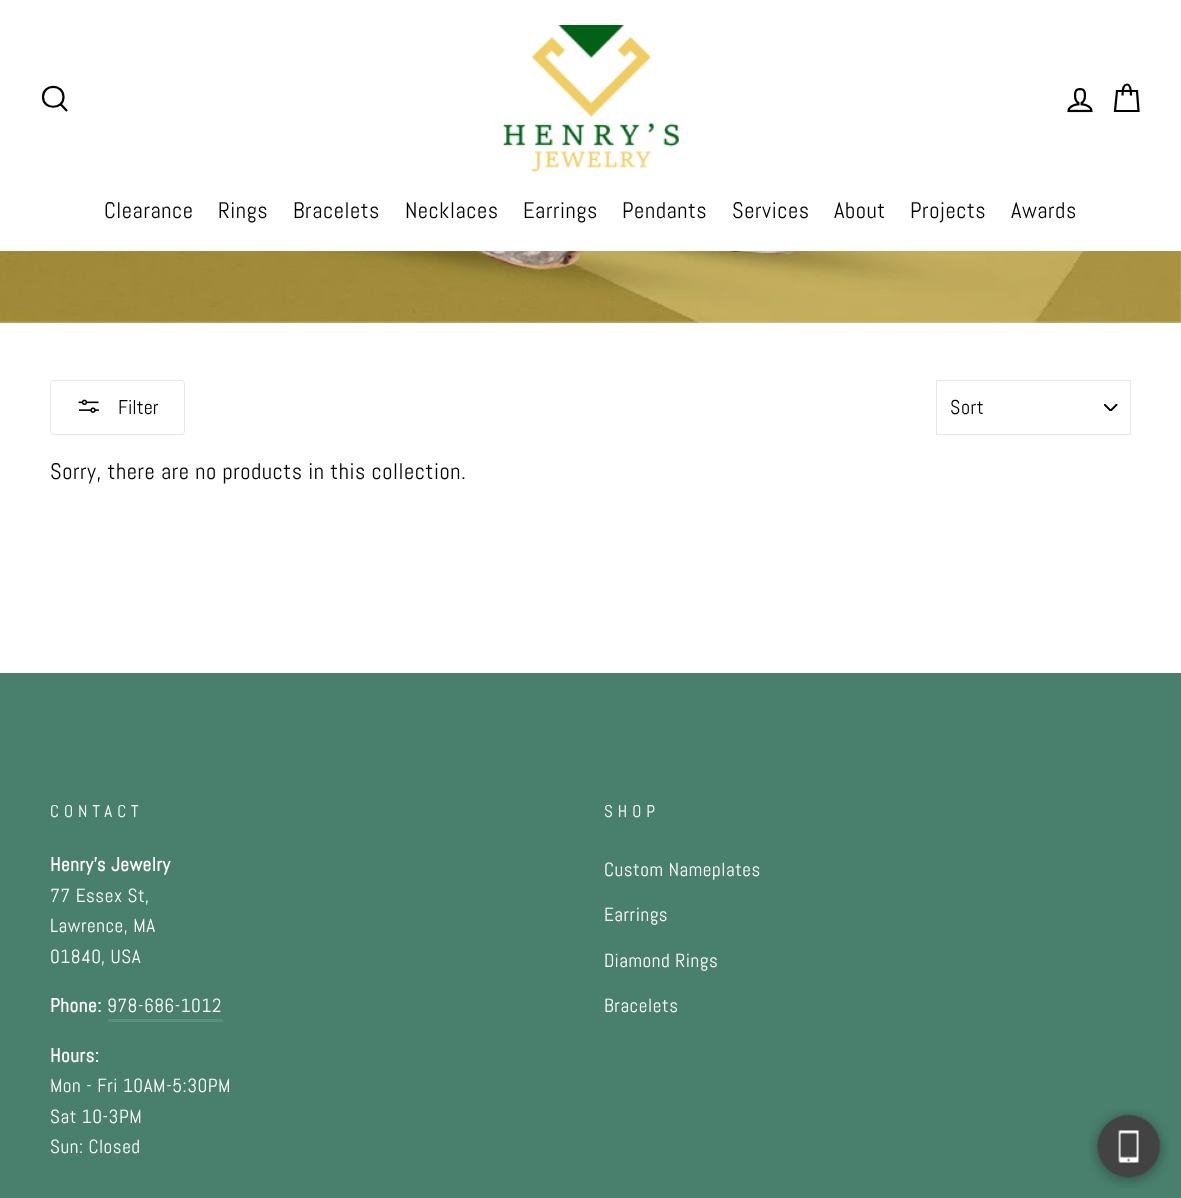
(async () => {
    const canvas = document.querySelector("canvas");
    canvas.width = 1181;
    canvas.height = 1198;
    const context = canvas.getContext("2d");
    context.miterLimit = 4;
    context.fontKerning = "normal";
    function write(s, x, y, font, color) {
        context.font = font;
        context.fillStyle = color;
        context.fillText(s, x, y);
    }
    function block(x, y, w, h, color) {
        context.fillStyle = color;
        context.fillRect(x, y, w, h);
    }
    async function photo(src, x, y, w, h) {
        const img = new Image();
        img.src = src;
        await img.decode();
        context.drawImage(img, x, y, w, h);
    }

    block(0, 0, 1181, 1198, "rgb(255, 255, 255)");
    context.beginPath();
    context.moveTo(63.5, 97);
    context.bezierCurveTo(63.5, 110, 43, 110, 43, 97);
    context.bezierCurveTo(43, 83.5, 63.5, 83.5, 63.5, 97);
    context.closePath();
    context.moveTo(67, 111);
    context.lineTo(60.5, 104);
    context.strokeStyle = "rgb(0, 0, 0)";
    context.lineWidth = 2.2;
    context.stroke();
    await photo("media/1.png", 503, 25, 176, 147);
    await photo("media/2.png", 1067, 88, 26, 25);
    context.beginPath();
    context.moveTo(1122.5, 95.5);
    context.bezierCurveTo(1122.5, 87, 1124.5, 84.5, 1127, 84.5);
    context.bezierCurveTo(1129, 84.5, 1131, 87, 1131, 95.5);
    context.moveTo(1117, 91);
    context.lineTo(1137, 91);
    context.lineTo(1138.5, 111);
    context.lineTo(1115, 111);
    context.closePath();
    context.stroke();
    context.letterSpacing = "0.55px";
    write("Clearance", 104, 218, "22.5px Abel", "rgb(0, 0, 0)");
    write("Rings", 218, 218, "22.5px Abel", "rgb(0, 0, 0)");
    write("Bracelets", 293, 218, "22.5px Abel", "rgb(0, 0, 0)");
    write("Necklaces", 405, 218, "22.5px Abel", "rgb(0, 0, 0)");
    write("Earrings", 523, 218, "22.5px Abel", "rgb(0, 0, 0)");
    write("Pendants", 622, 218, "22.5px Abel", "rgb(0, 0, 0)");
    write("Services", 732, 218, "22.5px Abel", "rgb(0, 0, 0)");
    write("About", 834, 218, "22.5px Abel", "rgb(0, 0, 0)");
    write("Projects", 910, 218, "22.5px Abel", "rgb(0, 0, 0)");
    write("Awards", 1011, 218, "22.5px Abel", "rgb(0, 0, 0)");
    await photo("media/3.png", 0, 251, 1181, 72);
    context.beginPath();
    context.roundRect(50.5, 380.5, 134, 54, 3.5);
    context.strokeStyle = "rgb(232, 232, 225)";
    context.lineWidth = 1;
    context.stroke();
    await photo("media/4.png", 78, 399, 21, 14);
    context.letterSpacing = "0px";
    write("Filter", 118, 414, "20px Abel", "rgb(0, 0, 0)");
    await photo("media/5.png", 1104, 404, 14, 7);
    context.strokeRect(936.5, 380.5, 194, 54);
    context.letterSpacing = "0.5px";
    write("Sort", 950, 414, "20px Abel", "rgb(0, 0, 0)");
    context.letterSpacing = "0.55px";
    write("Sorry, there are no products in this collection.", 50, 479, "22.5px Abel", "rgb(0, 0, 0)");
    block(0, 673, 1181, 525, "rgb(73, 128, 109)");
    context.letterSpacing = "5px";
    write("CONTACT", 50, 817, "17px Abel", "rgb(255, 255, 255)");
    context.letterSpacing = "0.55px";
    write("Henry's Jewelry", 50, 871, "bold 19.1px Abel", "rgb(255, 255, 255)");
    write("77 Essex St,", 50, 902, "19.1px Abel", "rgb(255, 255, 255)");
    write("Lawrence, MA", 50, 932, "19.1px Abel", "rgb(255, 255, 255)");
    write("01840, USA", 50, 963, "19.1px Abel", "rgb(255, 255, 255)");
    write("Phone:", 50, 1012, "bold 19.1px Abel", "rgb(255, 255, 255)");
    write("978-686-1012", 107, 1012, "19.1px Abel", "rgb(255, 255, 255)");
    block(108, 1019, 115, 3, "rgb(91, 141, 124)");
    write("Hours:", 50, 1062, "bold 19.1px Abel", "rgb(255, 255, 255)");
    write("Mon - Fri 10AM-5:30PM", 50, 1092, "19.1px Abel", "rgb(255, 255, 255)");
    write("Sat 10-3PM", 50, 1123, "19.1px Abel", "rgb(255, 255, 255)");
    write("Sun: Closed", 50, 1153, "19.1px Abel", "rgb(255, 255, 255)");
    context.letterSpacing = "5px";
    write("SHOP", 604, 817, "17px Abel", "rgb(255, 255, 255)");
    context.letterSpacing = "0.55px";
    write("Custom Nameplates", 604, 876, "19.1px Abel", "rgb(255, 255, 255)");
    write("Earrings", 604, 921, "19.1px Abel", "rgb(255, 255, 255)");
    write("Diamond Rings", 604, 967, "19.1px Abel", "rgb(255, 255, 255)");
    write("Bracelets", 604, 1012, "19.1px Abel", "rgb(255, 255, 255)");
    await photo("media/6.png", 1089, 1109, 80, 80);
})();
